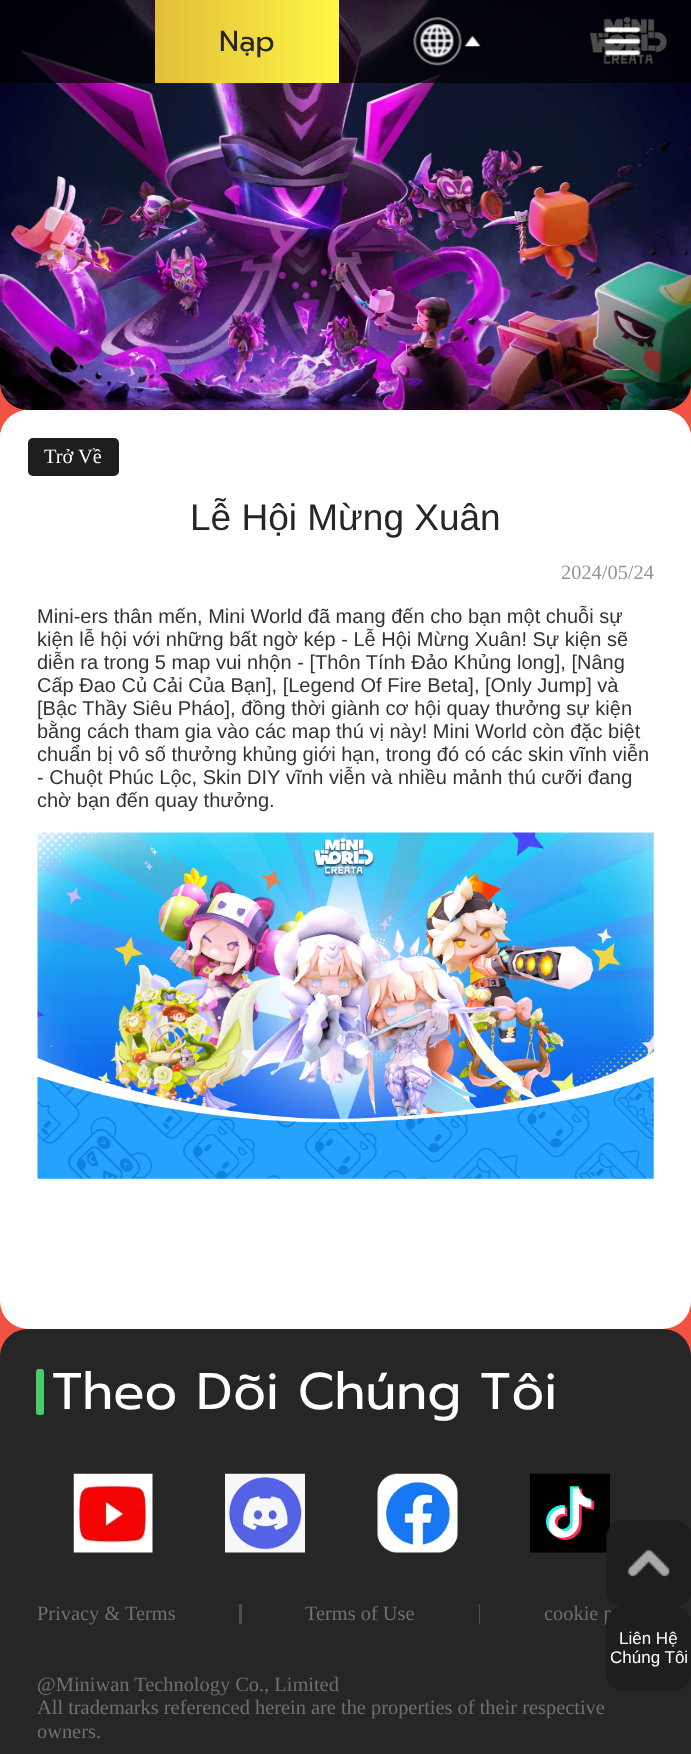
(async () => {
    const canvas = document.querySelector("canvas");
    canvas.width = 691;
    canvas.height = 1754;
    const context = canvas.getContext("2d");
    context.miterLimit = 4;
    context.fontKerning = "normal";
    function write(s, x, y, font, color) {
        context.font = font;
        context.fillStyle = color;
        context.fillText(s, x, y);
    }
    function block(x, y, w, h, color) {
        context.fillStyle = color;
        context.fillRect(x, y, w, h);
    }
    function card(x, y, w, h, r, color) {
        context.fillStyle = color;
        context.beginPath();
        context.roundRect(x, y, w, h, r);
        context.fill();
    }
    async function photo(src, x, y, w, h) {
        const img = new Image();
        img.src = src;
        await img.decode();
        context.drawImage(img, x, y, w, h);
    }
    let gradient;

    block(0, 0, 691, 1754, "rgb(242, 82, 65)");
    await photo("media/1.png", 0, 0, 691, 410);
    block(0, 0, 691, 83, "rgba(0, 0, 0, 0.7)");
    gradient = context.createLinearGradient(155, 41, 339, 41);
    gradient.addColorStop(0, "rgb(225, 189, 56)");
    gradient.addColorStop(1, "rgb(255, 247, 69)");
    context.fillStyle = gradient;
    context.fillRect(155, 0, 184, 83);
    write("Nạp", 219, 51, "29px Prompt", "rgb(38, 39, 36)");
    await photo("media/2.png", 413, 17, 49, 49);
    await photo("media/3.png", 464, 36, 17, 11);
    await photo("media/4.png", 604, 27, 37, 29);
    context.fillStyle = "rgb(38, 38, 38)";
    context.beginPath();
    context.moveTo(28, 1329);
    context.lineTo(663, 1329);
    context.bezierCurveTo(678.5, 1329, 691, 1341.5, 691, 1357);
    context.lineTo(691, 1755);
    context.lineTo(0, 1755);
    context.lineTo(0, 1357);
    context.bezierCurveTo(0, 1341.5, 12.5, 1329, 28, 1329);
    context.closePath();
    context.fill();
    await photo("media/10.png", 530, 1473, 80, 80);
    write("cookie p", 544, 1620, "20.4px Liberation Serif", "rgb(112, 112, 112)");
    await photo("media/5.png", 606, 1520, 85, 86);
    card(606, 1606, 85, 85, 18, "rgb(31, 30, 30)");
    write("Liên Hệ", 619, 1644, "17px Liberation Sans", "rgb(255, 255, 255)");
    write("Chúng Tôi", 610, 1663, "17px Liberation Sans", "rgb(255, 255, 255)");
    card(0, 410, 691, 919, 28, "rgb(255, 255, 255)");
    card(0, 410, 691, 906, 28, "rgb(255, 255, 255)");
    card(28, 438, 91, 38, 5, "rgb(31, 30, 30)");
    write("Trở Về", 44, 463, "20.4px Liberation Serif", "rgb(255, 255, 255)");
    write("Lễ Hội Mừng Xuân", 190, 530, "37px Liberation Sans", "rgb(38, 39, 36)");
    write("2024/05/24", 561, 579, "20.4px Liberation Serif", "rgb(148, 148, 148)");
    write("Mini-ers thân mến, Mini World đã mang đến cho bạn một chuỗi sự", 37, 623, "20px Liberation Sans", "rgb(51, 51, 51)");
    write("kiện lễ hội với những bất ngờ kép - Lễ Hội Mừng Xuân! Sự kiện sẽ", 37, 646, "20px Liberation Sans", "rgb(51, 51, 51)");
    write("diễn ra trong 5 map vui nhộn - [Thôn Tính Đảo Khủng long], [Nâng", 37, 669, "20px Liberation Sans", "rgb(51, 51, 51)");
    write("Cấp Đao Củ Cải Của Bạn], [Legend Of Fire Beta], [Only Jump] và", 37, 692, "20px Liberation Sans", "rgb(51, 51, 51)");
    write("[Bậc Thầy Siêu Pháo], đồng thời giành cơ hội quay thưởng sự kiện", 37, 715, "20px Liberation Sans", "rgb(51, 51, 51)");
    write("bằng cách tham gia vào các map thú vị này! Mini World còn đặc biệt", 37, 738, "20px Liberation Sans", "rgb(51, 51, 51)");
    write("chuẩn bị vô số thưởng khủng giới hạn, trong đó có các skin vĩnh viễn", 37, 761, "20px Liberation Sans", "rgb(51, 51, 51)");
    write("- Chuột Phúc Lộc, Skin DIY vĩnh viễn và nhiều mảnh thú cưỡi đang", 37, 784, "20px Liberation Sans", "rgb(51, 51, 51)");
    write("chờ bạn đến quay thưởng.", 37, 807, "20px Liberation Sans", "rgb(51, 51, 51)");
    await photo("media/6.png", 37, 832, 617, 347);
    card(36, 1369, 8, 46, 2.5, "rgb(70, 204, 106)");
    write("Theo Dõi Chúng Tôi", 52, 1409, "51.5px Prompt", "rgb(255, 255, 255)");
    await photo("media/7.png", 73, 1473, 80, 80);
    await photo("media/8.png", 225, 1473, 80, 80);
    await photo("media/9.png", 377, 1473, 81, 80);
    write("Privacy & Terms", 37, 1620, "20.4px Liberation Serif", "rgb(112, 112, 112)");
    block(239, 1604, 3, 20, "rgb(78, 78, 78)");
    write("Terms of Use", 305, 1620, "20.4px Liberation Serif", "rgb(112, 112, 112)");
    block(479, 1604, 1, 20, "rgb(78, 78, 78)");
    write("@Miniwan Technology Co., Limited", 37, 1691, "20.4px Liberation Serif", "rgb(112, 112, 112)");
    write("All trademarks referenced herein are the properties of their respective", 37, 1714, "20.4px Liberation Serif", "rgb(112, 112, 112)");
    write("owners.", 37, 1738, "20.4px Liberation Serif", "rgb(112, 112, 112)");
})();
